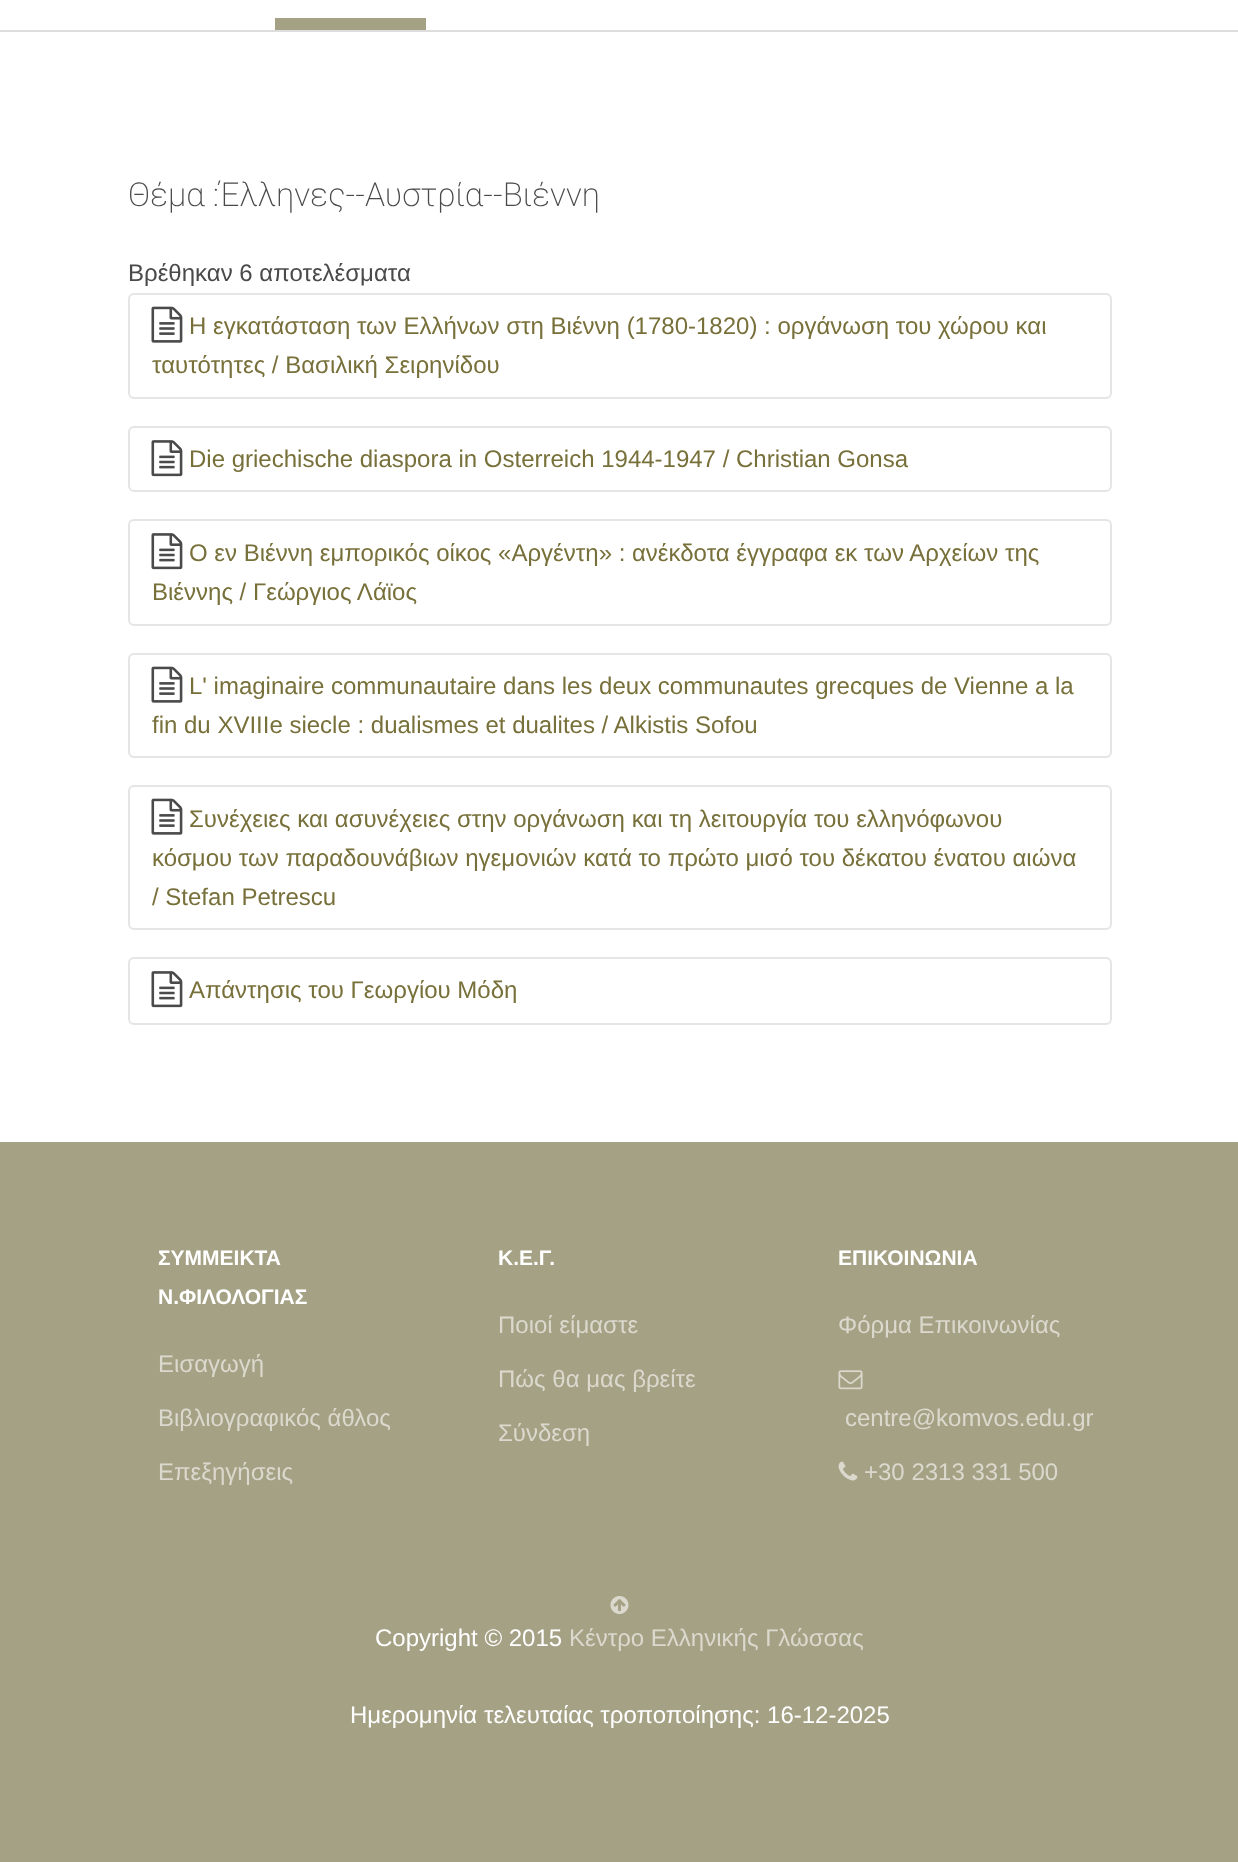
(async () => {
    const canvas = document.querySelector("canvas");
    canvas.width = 1238;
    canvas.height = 1862;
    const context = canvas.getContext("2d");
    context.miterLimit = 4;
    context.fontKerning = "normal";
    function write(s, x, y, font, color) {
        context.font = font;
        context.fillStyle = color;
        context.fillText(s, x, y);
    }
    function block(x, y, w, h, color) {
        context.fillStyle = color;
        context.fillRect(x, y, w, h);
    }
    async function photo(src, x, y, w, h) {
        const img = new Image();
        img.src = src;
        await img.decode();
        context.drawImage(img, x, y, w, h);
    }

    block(0, 0, 1238, 1862, "rgb(255, 255, 255)");
    block(275, 18, 151, 12, "rgb(165, 161, 132)");
    block(0, 30, 1238, 2, "rgb(221, 221, 221)");
    write("Θέμα :Έλληνες--Αυστρία--Βιέννη", 128, 206, "200 33px Roboto", "rgb(74, 74, 74)");
    write("Βρέθηκαν 6 αποτελέσματα", 128, 281, "24px Liberation Sans", "rgb(74, 74, 74)");
    context.beginPath();
    context.roundRect(129, 294, 982, 104, 5);
    context.strokeStyle = "rgb(229, 229, 229)";
    context.lineWidth = 2;
    context.stroke();
    await photo("media/1.png", 151, 306, 32, 37);
    write("Η εγκατάσταση των Ελλήνων στη Βιέννη (1780-1820) : οργάνωση του χώρου και", 189, 334, "24px Liberation Sans", "rgb(120, 112, 58)");
    write("ταυτότητες / Βασιλική Σειρηνίδου", 152, 373, "24px Liberation Sans", "rgb(120, 112, 58)");
    context.beginPath();
    context.roundRect(129, 427, 982, 64, 5);
    context.stroke();
    await photo("media/2.png", 151, 440, 32, 37);
    write("Die griechische diaspora in Osterreich 1944-1947 / Christian Gonsa", 189, 467, "24px Liberation Sans", "rgb(120, 112, 58)");
    context.beginPath();
    context.roundRect(129, 520, 982, 105, 5);
    context.stroke();
    await photo("media/2.png", 151, 533, 32, 37);
    write("Ο εν Βιέννη εμπορικός οίκος «Αργέντη» : ανέκδοτα έγγραφα εκ των Αρχείων της", 189, 561, "24px Liberation Sans", "rgb(120, 112, 58)");
    write("Βιέννης / Γεώργιος Λάϊος", 152, 600, "24px Liberation Sans", "rgb(120, 112, 58)");
    context.beginPath();
    context.roundRect(129, 654, 982, 103, 5);
    context.stroke();
    await photo("media/1.png", 151, 666, 32, 37);
    write("L' imaginaire communautaire dans les deux communautes grecques de Vienne a la", 189, 694, "24px Liberation Sans", "rgb(120, 112, 58)");
    write("fin du XVIIIe siecle : dualismes et dualites / Alkistis Sofou", 152, 733, "24px Liberation Sans", "rgb(120, 112, 58)");
    context.beginPath();
    context.roundRect(129, 786, 982, 143, 5);
    context.stroke();
    await photo("media/1.png", 151, 798, 32, 37);
    write("Συνέχειες και ασυνέχειες στην οργάνωση και τη λειτουργία του ελληνόφωνου", 189, 827, "24px Liberation Sans", "rgb(120, 112, 58)");
    write("κόσμου των παραδουνάβιων ηγεμονιών κατά το πρώτο μισό του δέκατου ένατου αιώνα", 152, 866, "24px Liberation Sans", "rgb(120, 112, 58)");
    write("/ Stefan Petrescu", 152, 905, "24px Liberation Sans", "rgb(120, 112, 58)");
    context.beginPath();
    context.roundRect(129, 958, 982, 66, 5);
    context.stroke();
    await photo("media/2.png", 151, 971, 32, 37);
    write("Απάντησις του Γεωργίου Μόδη", 189, 998, "24px Liberation Sans", "rgb(120, 112, 58)");
    block(0, 1142, 1238, 720, "rgb(165, 161, 132)");
    write("ΣΥΜΜΕΙΚΤΑ", 158, 1265, "bold 21px Liberation Sans", "rgb(255, 255, 255)");
    write("Ν.ΦΙΛΟΛΟΓΙΑΣ", 158, 1304, "bold 21px Liberation Sans", "rgb(255, 255, 255)");
    write("Εισαγωγή", 158, 1372, "24px Liberation Sans", "rgb(219, 217, 206)");
    write("Βιβλιογραφικός άθλος", 158, 1426, "24px Liberation Sans", "rgb(219, 217, 206)");
    write("Επεξηγήσεις", 158, 1480, "24px Liberation Sans", "rgb(219, 217, 206)");
    write("Κ.Ε.Γ.", 498, 1265, "bold 21px Liberation Sans", "rgb(255, 255, 255)");
    write("Ποιοί είμαστε", 498, 1333, "24px Liberation Sans", "rgb(219, 217, 206)");
    write("Πώς θα μας βρείτε", 498, 1387, "24px Liberation Sans", "rgb(219, 217, 206)");
    write("Σύνδεση", 498, 1441, "24px Liberation Sans", "rgb(219, 217, 206)");
    write("ΕΠΙΚΟΙΝΩΝΙΑ", 838, 1265, "bold 21px Liberation Sans", "rgb(255, 255, 255)");
    write("Φόρμα Επικοινωνίας", 838, 1333, "24px Liberation Sans", "rgb(219, 217, 206)");
    await photo("media/3.png", 838, 1370, 25, 20);
    write("centre@komvos.edu.gr", 845, 1426, "24px Liberation Sans", "rgb(219, 217, 206)");
    await photo("media/4.png", 838, 1461, 20, 20);
    write("+30 2313 331 500", 864, 1480, "24px Liberation Sans", "rgb(219, 217, 206)");
    await photo("media/5.png", 610, 1596, 19, 18);
    write("Copyright © 2015", 375, 1646, "24px Liberation Sans", "rgb(255, 255, 255)");
    write("Κέντρο Ελληνικής Γλώσσας", 569, 1646, "24px Liberation Sans", "rgb(219, 217, 206)");
    write("Ημερομηνία τελευταίας τροποποίησης: 16-12-2025", 350, 1723, "24px Liberation Sans", "rgb(255, 255, 255)");
})();
